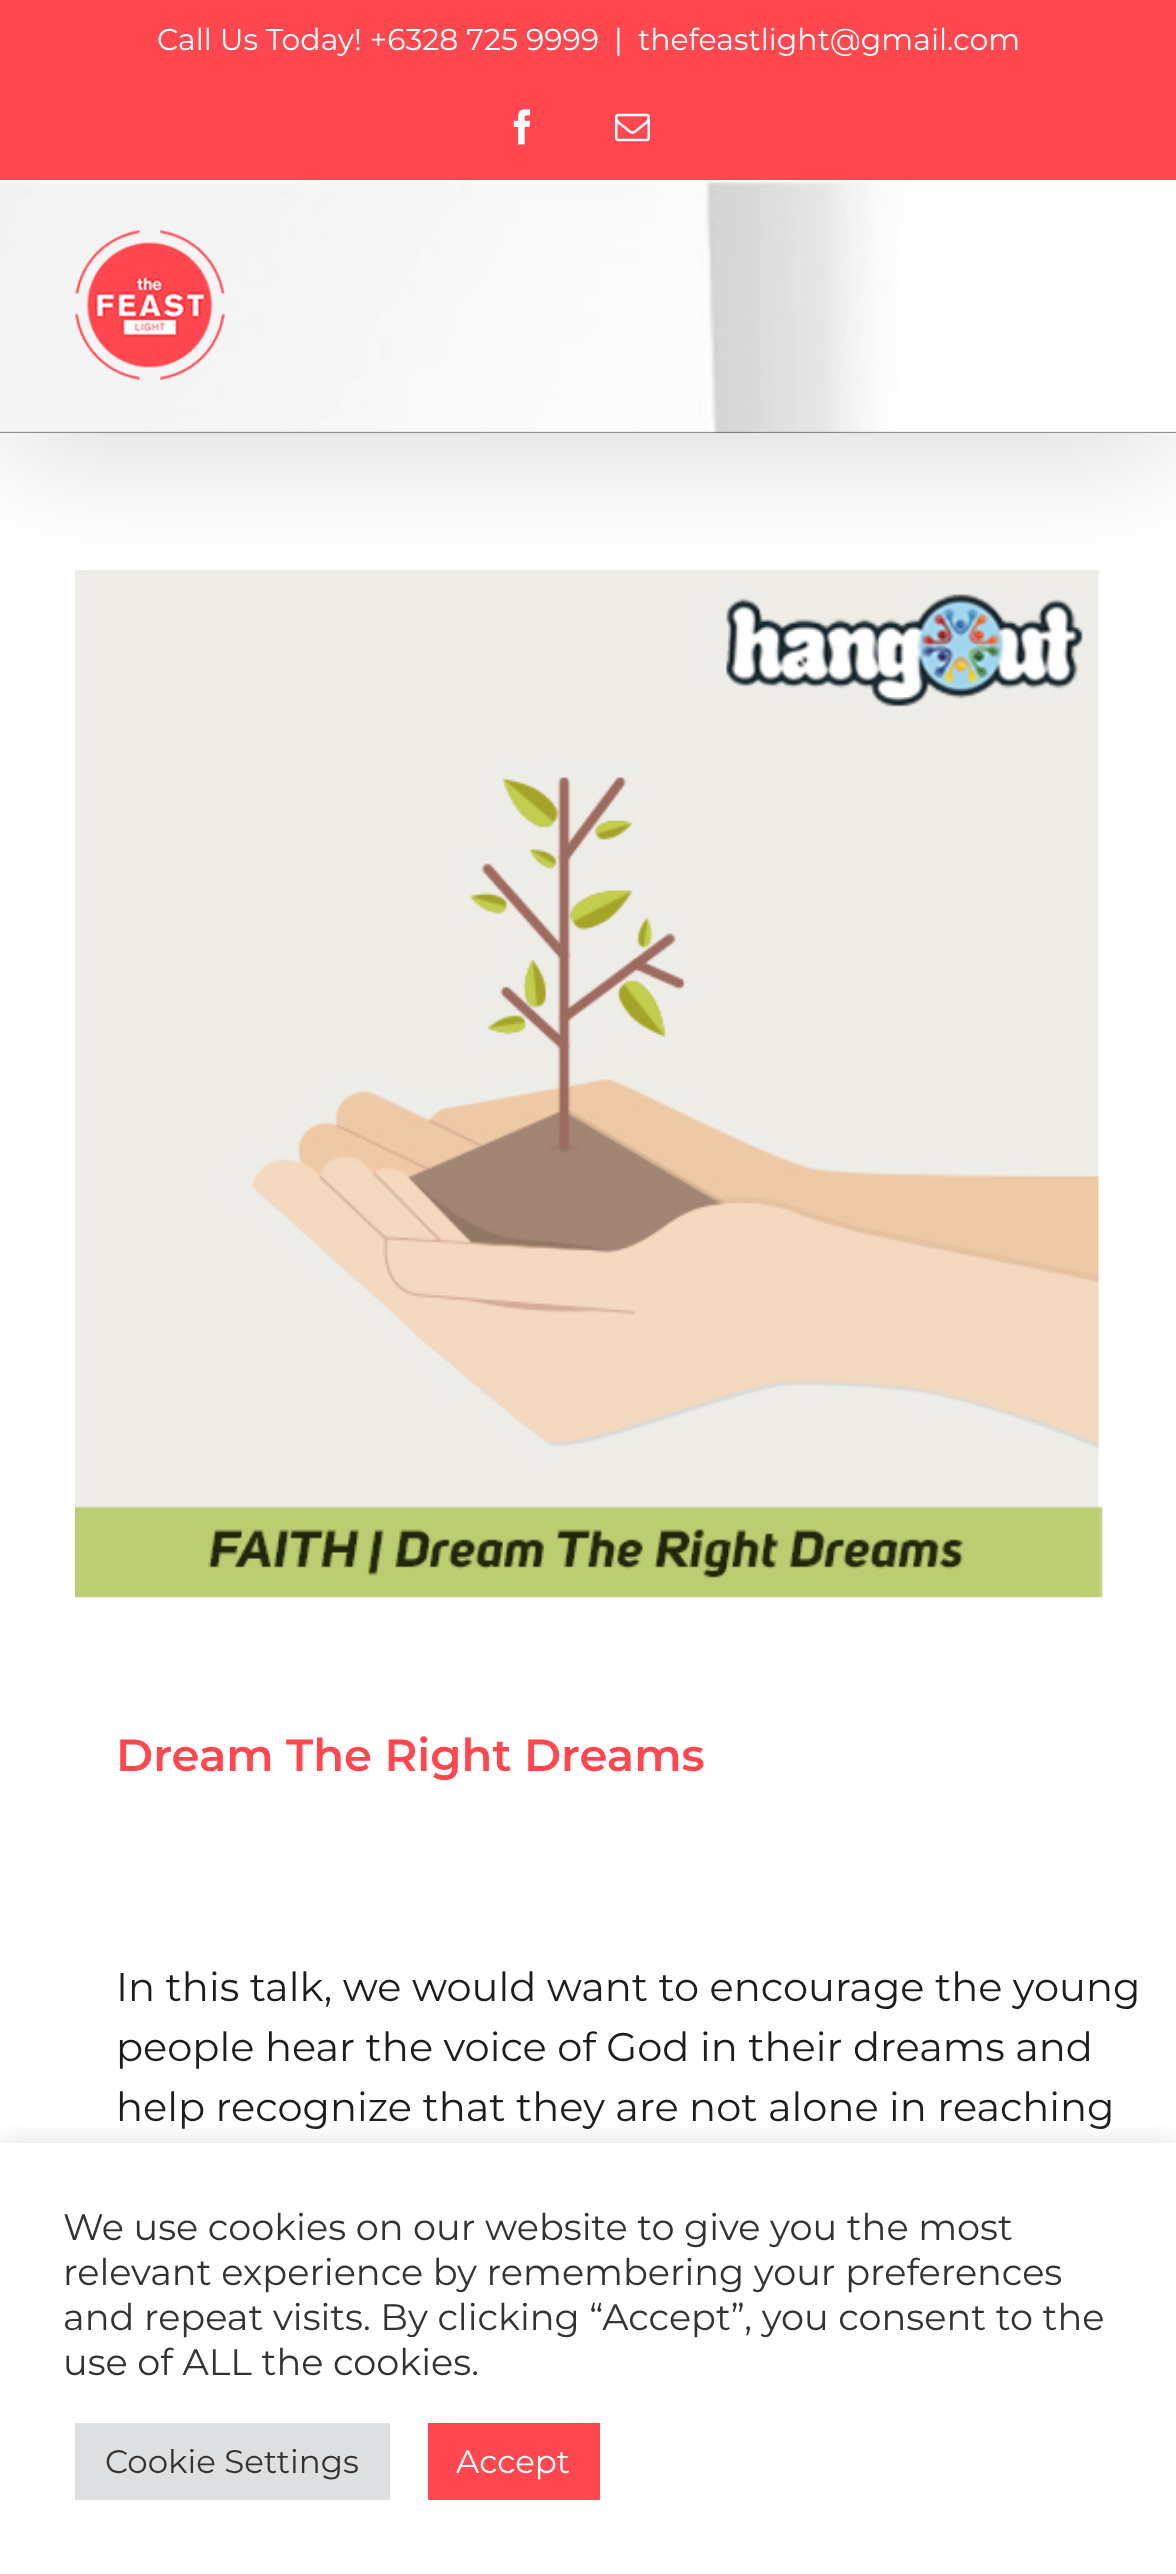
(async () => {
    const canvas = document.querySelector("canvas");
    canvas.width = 1176;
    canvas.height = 2574;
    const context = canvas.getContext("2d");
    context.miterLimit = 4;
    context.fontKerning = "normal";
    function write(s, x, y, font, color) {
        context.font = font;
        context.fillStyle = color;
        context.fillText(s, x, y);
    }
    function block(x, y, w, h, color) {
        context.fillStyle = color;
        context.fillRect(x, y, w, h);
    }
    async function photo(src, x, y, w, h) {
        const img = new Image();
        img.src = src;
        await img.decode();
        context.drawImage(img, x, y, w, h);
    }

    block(0, 0, 1176, 2574, "rgb(255, 255, 255)");
    await photo("media/5.png", 75, 570, 1028, 1028);
    context.fillStyle = "rgba(0, 0, 0, 0.14)";
    context.filter = "blur(62.5px)";
    context.beginPath();
    context.rect(5, 30, 1168, 423);
    context.fill();
    context.filter = "none";
    block(0, 0, 1176, 180, "rgb(255, 71, 79)");
    write("Call Us Today! +6328 725 9999", 157, 50, "30px Montserrat", "rgb(255, 255, 255)");
    write("|", 614, 50, "30px Montserrat", "rgb(255, 255, 255)");
    write("thefeastlight@gmail.com", 638, 50, "30px Montserrat", "rgb(255, 255, 255)");
    await photo("media/1.png", 513, 109, 18, 36);
    await photo("media/2.png", 615, 113, 35, 29);
    block(0, 431, 1176, 2, "rgb(38, 37, 40)");
    await photo("media/3.png", 0, 180, 1176, 253);
    await photo("media/4.png", 75, 230, 150, 151);
    write("Dream The Right Dreams", 116, 1771, "600 45px Montserrat", "rgb(255, 71, 79)");
    write("In this talk, we would want to encourage the young", 116, 2001, "40px Montserrat", "rgb(29, 29, 29)");
    write("people hear the voice of God in their dreams and", 116, 2061, "40px Montserrat", "rgb(29, 29, 29)");
    write("help recognize that they are not alone in reaching", 116, 2121, "40px Montserrat", "rgb(29, 29, 29)");
    context.fillStyle = "rgba(172, 171, 171, 0.3)";
    context.filter = "blur(12.5px)";
    context.beginPath();
    context.rect(0, 2140, 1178, 433);
    context.fill();
    context.filter = "none";
    block(0, 2143, 1176, 431, "rgb(255, 255, 255)");
    write("We use cookies on our website to give you the most", 63, 2240, "36.7px Montserrat", "rgb(51, 51, 51)");
    write("relevant experience by remembering your preferences", 63, 2285, "36.7px Montserrat", "rgb(51, 51, 51)");
    write("and repeat visits. By clicking “Accept”, you consent to the", 63, 2330, "36.7px Montserrat", "rgb(51, 51, 51)");
    write("use of ALL the cookies.", 63, 2375, "36.7px Montserrat", "rgb(51, 51, 51)");
    block(75, 2423, 315, 77, "rgb(222, 223, 224)");
    write("Cookie Settings", 105, 2473, "32.5px Montserrat", "rgb(51, 51, 51)");
    block(428, 2423, 172, 77, "rgb(255, 71, 79)");
    write("Accept", 456, 2473, "32.5px Montserrat", "rgb(255, 255, 255)");
})();
